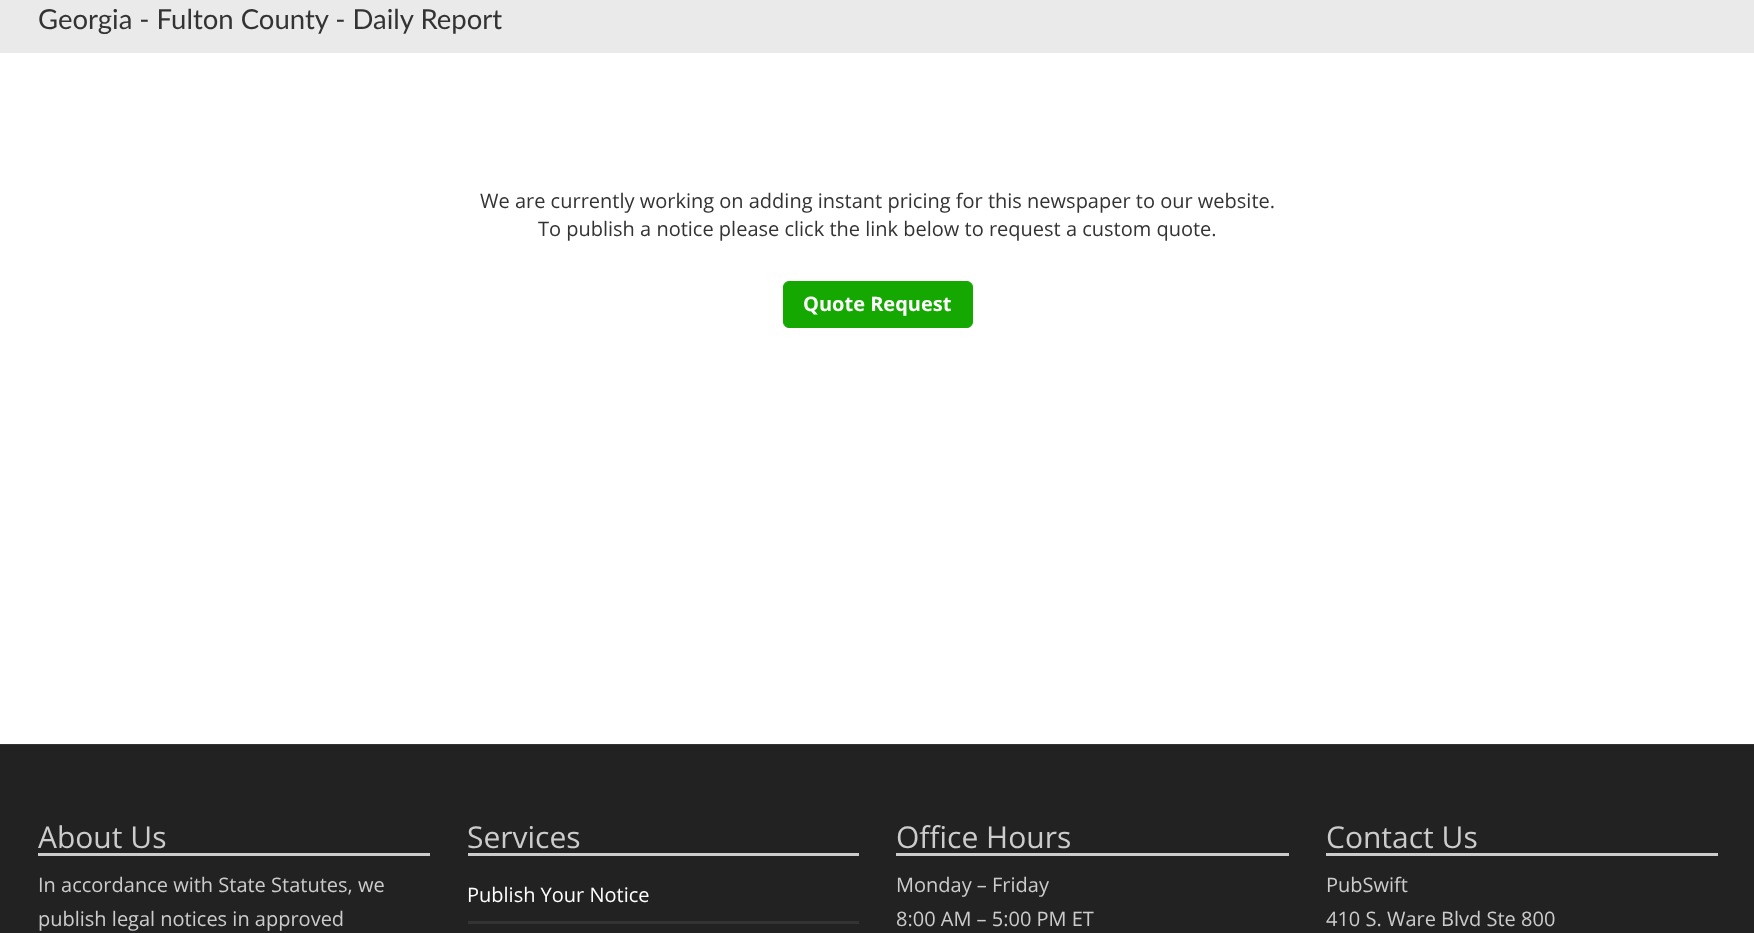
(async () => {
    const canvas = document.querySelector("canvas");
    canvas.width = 1754;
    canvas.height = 933;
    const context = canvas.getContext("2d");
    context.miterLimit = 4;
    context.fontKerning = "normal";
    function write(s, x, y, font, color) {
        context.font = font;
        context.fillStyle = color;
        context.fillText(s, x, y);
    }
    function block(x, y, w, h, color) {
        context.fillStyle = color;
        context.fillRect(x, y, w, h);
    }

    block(0, 0, 1754, 933, "rgb(255, 255, 255)");
    block(0, 0, 1754, 53, "rgb(234, 234, 234)");
    write("Georgia - Fulton County - Daily Report", 38, 29, "27.5px Lato", "rgb(51, 51, 51)");
    write("We are currently working on adding instant pricing for this newspaper to our website.", 480, 208, "20px Open Sans", "rgb(51, 51, 51)");
    write("To publish a notice please click the link below to request a custom quote.", 538, 236, "20px Open Sans", "rgb(51, 51, 51)");
    context.fillStyle = "rgb(20, 168, 0)";
    context.beginPath();
    context.roundRect(783.5, 281.5, 189, 46, 5.5);
    context.fill();
    context.strokeStyle = "rgb(20, 168, 0)";
    context.stroke();
    write("Quote Request", 803, 311, "bold 20px Open Sans", "rgb(255, 255, 255)");
    block(0, 745, 1754, 188, "rgb(34, 34, 34)");
    block(0, 744, 1754, 1, "rgb(51, 51, 51)");
    block(38, 853, 392, 3, "rgb(204, 204, 204)");
    write("About Us", 38, 848, "30px Open Sans", "rgb(204, 204, 204)");
    write("In accordance with State Statutes, we", 38, 892, "20px Open Sans", "rgb(204, 204, 204)");
    write("publish legal notices in approved", 38, 926, "20px Open Sans", "rgb(204, 204, 204)");
    block(468, 853, 391, 3, "rgb(204, 204, 204)");
    write("Services", 467, 848, "30px Open Sans", "rgb(204, 204, 204)");
    write("Publish Your Notice", 467, 902, "20px Open Sans", "rgb(255, 255, 255)");
    block(468, 921, 391, 3, "rgb(51, 51, 51)");
    block(896, 853, 393, 3, "rgb(204, 204, 204)");
    write("Office Hours", 896, 848, "30px Open Sans", "rgb(204, 204, 204)");
    write("Monday – Friday", 896, 892, "20px Open Sans", "rgb(204, 204, 204)");
    write("8:00 AM – 5:00 PM ET", 896, 926, "20px Open Sans", "rgb(204, 204, 204)");
    block(1326, 853, 392, 3, "rgb(204, 204, 204)");
    write("Contact Us", 1326, 848, "30px Open Sans", "rgb(204, 204, 204)");
    write("PubSwift", 1326, 892, "20px Open Sans", "rgb(204, 204, 204)");
    write("410 S. Ware Blvd Ste 800", 1326, 926, "20px Open Sans", "rgb(204, 204, 204)");
})();
